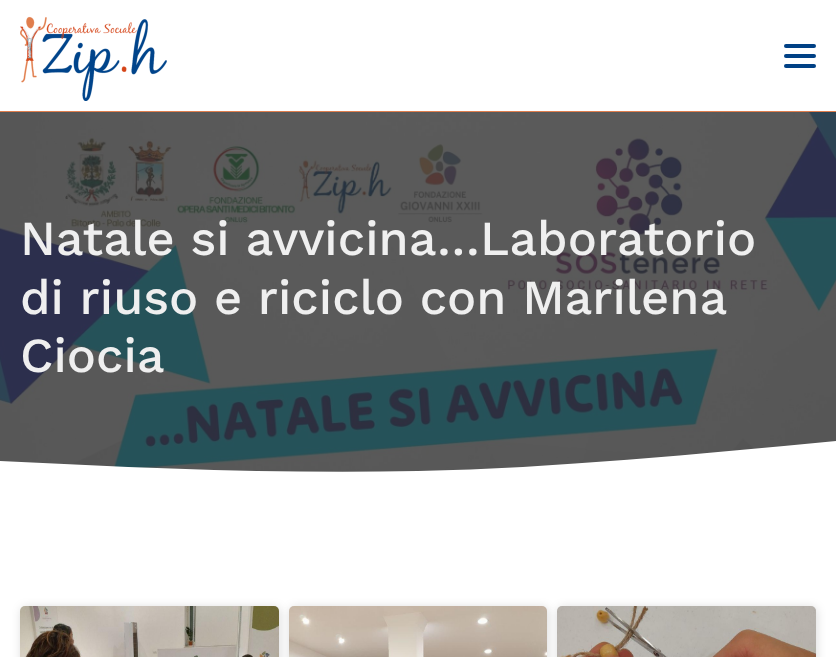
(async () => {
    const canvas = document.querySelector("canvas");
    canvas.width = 836;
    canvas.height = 657;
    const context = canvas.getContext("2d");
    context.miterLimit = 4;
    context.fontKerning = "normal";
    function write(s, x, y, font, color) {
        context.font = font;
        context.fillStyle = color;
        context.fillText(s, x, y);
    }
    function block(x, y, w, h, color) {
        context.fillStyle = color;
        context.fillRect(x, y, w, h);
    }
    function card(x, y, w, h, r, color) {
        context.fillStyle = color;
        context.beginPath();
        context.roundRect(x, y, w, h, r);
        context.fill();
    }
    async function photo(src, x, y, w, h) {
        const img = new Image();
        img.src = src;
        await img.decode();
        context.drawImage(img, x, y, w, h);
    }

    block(0, 0, 836, 657, "rgb(255, 255, 255)");
    await photo("media/1.png", 20, 16, 147, 85);
    card(784, 54, 32, 4, 2, "rgb(0, 65, 133)");
    card(784, 44, 32, 4, 2, "rgb(0, 65, 133)");
    card(784, 64, 32, 4, 2, "rgb(0, 65, 133)");
    block(0, 111, 836, 1, "rgb(224, 126, 77)");
    await photo("media/2.png", 0, 112, 836, 360);
    write("Natale si avvicina…Laboratorio", 20, 255, "500 48.8px Work Sans", "rgb(239, 239, 239)");
    context.wordSpacing = "-0.25px";
    write("di riuso e riciclo con Marilena", 20, 314, "500 48.8px Work Sans", "rgb(239, 239, 239)");
    context.wordSpacing = "0px";
    write("Ciocia", 20, 372, "500 48.8px Work Sans", "rgb(239, 239, 239)");
    context.fillStyle = "rgb(255, 255, 255)";
    context.beginPath();
    context.moveTo(0, 461);
    context.bezierCurveTo(139, 468, 279, 474, 418, 471);
    context.bezierCurveTo(558, 468, 697, 454, 836, 441);
    context.lineTo(836, 486);
    context.lineTo(0, 486);
    context.closePath();
    context.fill();
    context.fillStyle = "rgba(0, 0, 0, 0.14)";
    context.filter = "blur(5px)";
    context.beginPath();
    context.roundRect(21, 607, 259, 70, 5);
    context.fill();
    context.filter = "none";
    await photo("media/3.png", 20, 606, 259, 51);
    context.filter = "blur(5px)";
    context.beginPath();
    context.roundRect(290, 607, 258, 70, 5);
    context.fill();
    context.filter = "none";
    await photo("media/4.png", 289, 606, 258, 51);
    context.filter = "blur(5px)";
    context.beginPath();
    context.roundRect(558, 607, 259, 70, 5);
    context.fill();
    context.filter = "none";
    await photo("media/5.png", 557, 606, 259, 51);
})();
